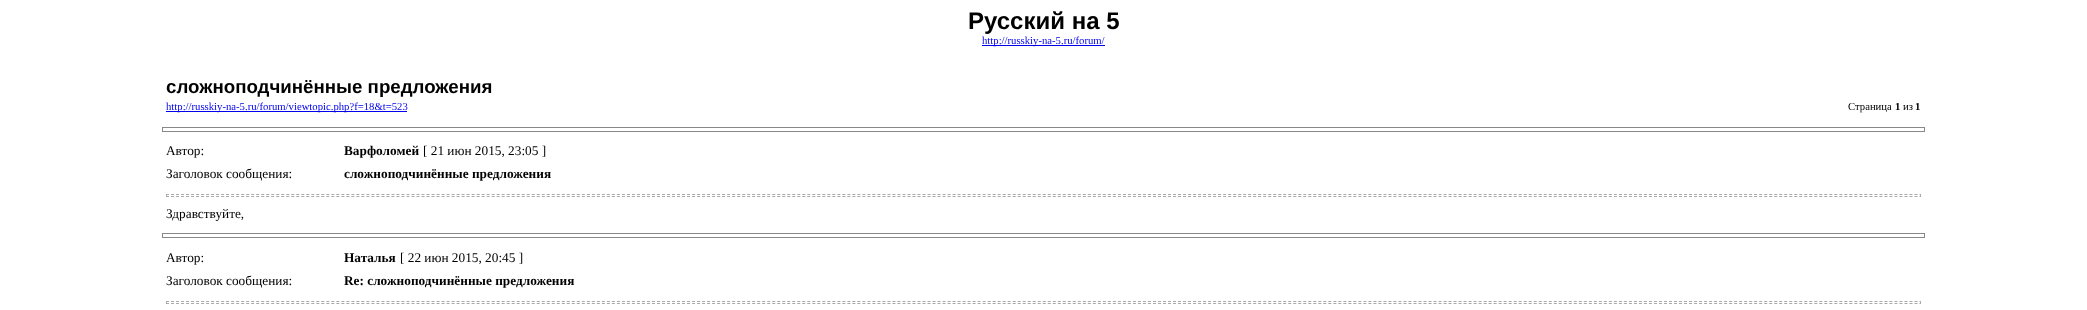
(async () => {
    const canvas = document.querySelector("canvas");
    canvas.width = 2087;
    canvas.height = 310;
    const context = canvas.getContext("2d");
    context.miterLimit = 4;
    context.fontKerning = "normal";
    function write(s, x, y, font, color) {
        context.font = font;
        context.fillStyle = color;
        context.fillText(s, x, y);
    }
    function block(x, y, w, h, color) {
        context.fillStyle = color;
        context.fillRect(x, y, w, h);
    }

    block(0, 0, 2087, 310, "rgb(255, 255, 255)");
    write("Русский на 5", 968, 29, "bold 24px Liberation Sans", "rgb(0, 0, 0)");
    block(982, 45, 123, 1, "rgb(0, 0, 238)");
    write("http://russkiy-na-5.ru/forum/", 982, 44, "10.7px Liberation Serif", "rgb(0, 0, 238)");
    write("сложноподчинённые предложения", 166, 93, "bold 18.7px Liberation Sans", "rgb(0, 0, 0)");
    block(166, 111, 241, 1, "rgb(0, 0, 238)");
    write("http://russkiy-na-5.ru/forum/viewtopic.php?f=18&t=523", 166, 110, "10.7px Liberation Serif", "rgb(0, 0, 238)");
    write("Страница", 1848, 110, "10.7px Liberation Serif", "rgb(0, 0, 0)");
    write("1", 1895, 110, "bold 10.7px Liberation Serif", "rgb(0, 0, 0)");
    write("из", 1903, 110, "10.7px Liberation Serif", "rgb(0, 0, 0)");
    write("1", 1915, 110, "bold 10.7px Liberation Serif", "rgb(0, 0, 0)");
    context.strokeStyle = "rgb(136, 136, 136)";
    context.strokeRect(162.5, 127.5, 1762, 4);
    write("Автор:", 166, 155, "13.3px Liberation Serif", "rgb(0, 0, 0)");
    write("Варфоломей", 344, 155, "bold 13.3px Liberation Serif", "rgb(0, 0, 0)");
    write("[ 21 июн 2015, 23:05 ]", 423, 155, "13.3px Liberation Serif", "rgb(0, 0, 0)");
    write("Заголовок сообщения:", 166, 178, "13.3px Liberation Serif", "rgb(0, 0, 0)");
    write("сложноподчинённые предложения", 344, 178, "bold 13.3px Liberation Serif", "rgb(0, 0, 0)");
    context.beginPath();
    context.moveTo(166, 194.5);
    context.lineTo(1921, 194.5);
    context.strokeStyle = "rgb(170, 170, 170)";
    context.setLineDash([3, 2.01]);
    context.stroke();
    block(1920, 194, 1, 3, "rgb(170, 170, 170)");
    context.beginPath();
    context.moveTo(166, 196.5);
    context.lineTo(1921, 196.5);
    context.stroke();
    block(166, 194, 1, 3, "rgb(170, 170, 170)");
    write("Здравствуйте,", 166, 218, "13.3px Liberation Serif", "rgb(0, 0, 0)");
    context.strokeStyle = "rgb(136, 136, 136)";
    context.setLineDash([]);
    context.strokeRect(162.5, 233.5, 1762, 4);
    write("Автор:", 166, 262, "13.3px Liberation Serif", "rgb(0, 0, 0)");
    write("Наталья", 344, 262, "bold 13.3px Liberation Serif", "rgb(0, 0, 0)");
    write("[ 22 июн 2015, 20:45 ]", 400, 262, "13.3px Liberation Serif", "rgb(0, 0, 0)");
    write("Заголовок сообщения:", 166, 285, "13.3px Liberation Serif", "rgb(0, 0, 0)");
    write("Re: сложноподчинённые предложения", 344, 285, "bold 13.3px Liberation Serif", "rgb(0, 0, 0)");
    context.beginPath();
    context.moveTo(166, 301.5);
    context.lineTo(1921, 301.5);
    context.strokeStyle = "rgb(170, 170, 170)";
    context.setLineDash([3, 2.01]);
    context.stroke();
    block(1920, 301, 1, 3, "rgb(170, 170, 170)");
    context.beginPath();
    context.moveTo(166, 303.5);
    context.lineTo(1921, 303.5);
    context.stroke();
    block(166, 301, 1, 3, "rgb(170, 170, 170)");
})();
